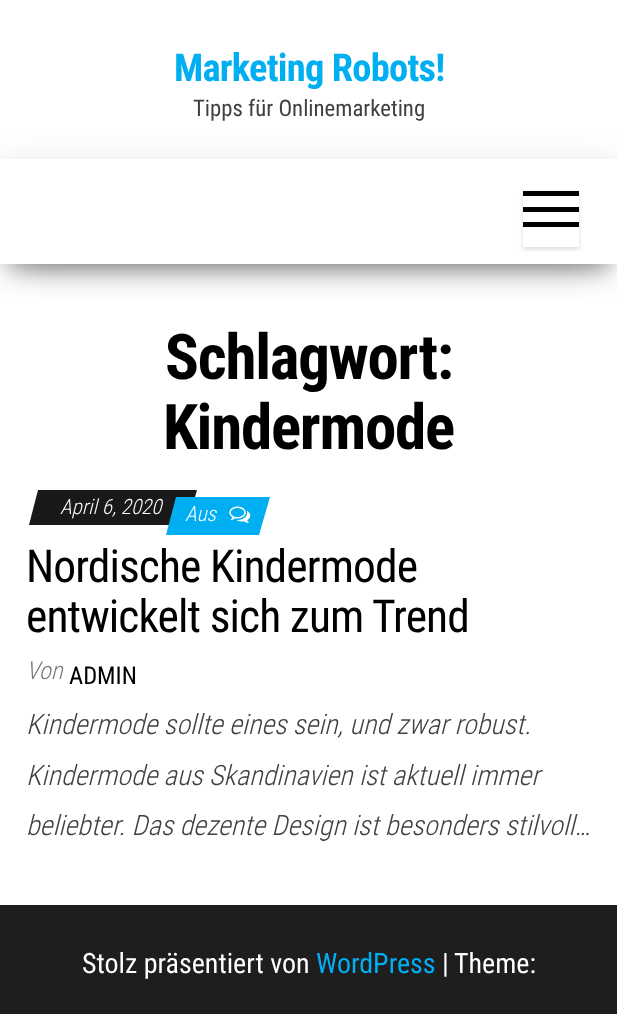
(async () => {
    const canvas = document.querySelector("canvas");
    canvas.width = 617;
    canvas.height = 1014;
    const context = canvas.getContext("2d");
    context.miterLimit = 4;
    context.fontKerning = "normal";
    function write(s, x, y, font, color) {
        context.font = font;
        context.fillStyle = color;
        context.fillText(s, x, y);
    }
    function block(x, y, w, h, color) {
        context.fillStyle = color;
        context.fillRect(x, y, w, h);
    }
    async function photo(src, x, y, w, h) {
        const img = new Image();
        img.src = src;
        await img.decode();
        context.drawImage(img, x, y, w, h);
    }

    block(0, 0, 617, 1014, "rgb(255, 255, 255)");
    context.letterSpacing = "-0.75px";
    write("Marketing Robots!", 174, 81, "bold 38.5px Roboto Condensed", "rgb(0, 175, 242)");
    context.fillStyle = "rgba(0, 0, 0, 0.12)";
    context.filter = "blur(17.5px)";
    context.beginPath();
    context.rect(0, 165, 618, 105);
    context.fill();
    context.filter = "none";
    context.letterSpacing = "0px";
    write("Tipps für Onlinemarketing", 193, 116, "22.75px Roboto Condensed", "rgb(64, 64, 64)");
    context.fillStyle = "rgba(0, 0, 0, 0.2)";
    context.filter = "blur(9px)";
    context.beginPath();
    context.rect(9, 182, 600, 88);
    context.fill();
    context.filter = "none";
    context.fillStyle = "rgba(0, 0, 0, 0.42)";
    context.filter = "blur(17.5px)";
    context.beginPath();
    context.rect(21, 198, 576, 63);
    context.fill();
    context.filter = "none";
    block(0, 159, 617, 105, "rgb(255, 255, 255)");
    context.save();
    context.beginPath();
    context.moveTo(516, 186);
    context.lineTo(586, 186);
    context.lineTo(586, 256);
    context.lineTo(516, 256);
    context.closePath();
    context.moveTo(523, 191);
    context.lineTo(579, 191);
    context.lineTo(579, 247);
    context.lineTo(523, 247);
    context.closePath();
    context.clip("evenodd");
    context.fillStyle = "rgba(0, 0, 0, 0.15)";
    context.filter = "blur(2px)";
    context.beginPath();
    context.rect(523, 193, 56, 56);
    context.fill();
    context.filter = "none";
    context.restore();
    block(523, 191, 56, 5, "rgb(0, 0, 0)");
    block(523, 207, 56, 5, "rgb(0, 0, 0)");
    block(523, 222, 56, 5, "rgb(0, 0, 0)");
    context.letterSpacing = "-1.25px";
    write("Schlagwort:", 165, 379, "bold 63px Roboto Condensed", "rgb(0, 0, 0)");
    write("Kindermode", 163, 449, "bold 63px Roboto Condensed", "rgb(0, 0, 0)");
    context.fillStyle = "rgb(25, 25, 25)";
    context.beginPath();
    context.moveTo(38, 490);
    context.lineTo(197, 490);
    context.lineTo(187, 525);
    context.lineTo(29, 525);
    context.closePath();
    context.fill();
    context.letterSpacing = "0px";
    write("April 6, 2020", 60, 514, "italic 300 21px Roboto Condensed", "rgb(255, 255, 255)");
    context.fillStyle = "rgb(0, 175, 242)";
    context.beginPath();
    context.moveTo(176, 497);
    context.lineTo(270, 497);
    context.lineTo(259, 535);
    context.lineTo(166, 535);
    context.closePath();
    context.fill();
    write("Aus", 185, 521, "italic 300 21px Roboto Condensed", "rgb(255, 255, 255)");
    await photo("media/1.png", 229, 506, 22, 17);
    context.letterSpacing = "-0.9px";
    write("Nordische Kindermode", 26, 582, "45.5px Roboto Condensed", "rgb(0, 0, 0)");
    write("entwickelt sich zum Trend", 26, 632, "45.5px Roboto Condensed", "rgb(0, 0, 0)");
    context.letterSpacing = "0px";
    write("Von", 26, 679, "italic 300 24.5px Roboto Condensed", "rgb(121, 121, 121)");
    write("ADMIN", 69, 684, "24.5px Roboto Condensed", "rgb(0, 0, 0)");
    write("Kindermode sollte eines sein, und zwar robust.", 26, 734, "italic 300 28px Roboto Condensed", "rgb(64, 64, 64)");
    write("Kindermode aus Skandinavien ist aktuell immer", 26, 785, "italic 300 28px Roboto Condensed", "rgb(64, 64, 64)");
    write("beliebter. Das dezente Design ist besonders stilvoll…", 26, 835, "italic 300 28px Roboto Condensed", "rgb(64, 64, 64)");
    block(0, 905, 617, 109, "rgb(30, 30, 30)");
    write("Stolz präsentiert von", 82, 973, "28px Roboto Condensed", "rgb(255, 255, 255)");
    write("WordPress", 316, 973, "28px Roboto Condensed", "rgb(0, 175, 242)");
    write("|", 442, 973, "28px Roboto Condensed", "rgb(255, 255, 255)");
    write("Theme:", 454, 973, "28px Roboto Condensed", "rgb(255, 255, 255)");
})();
